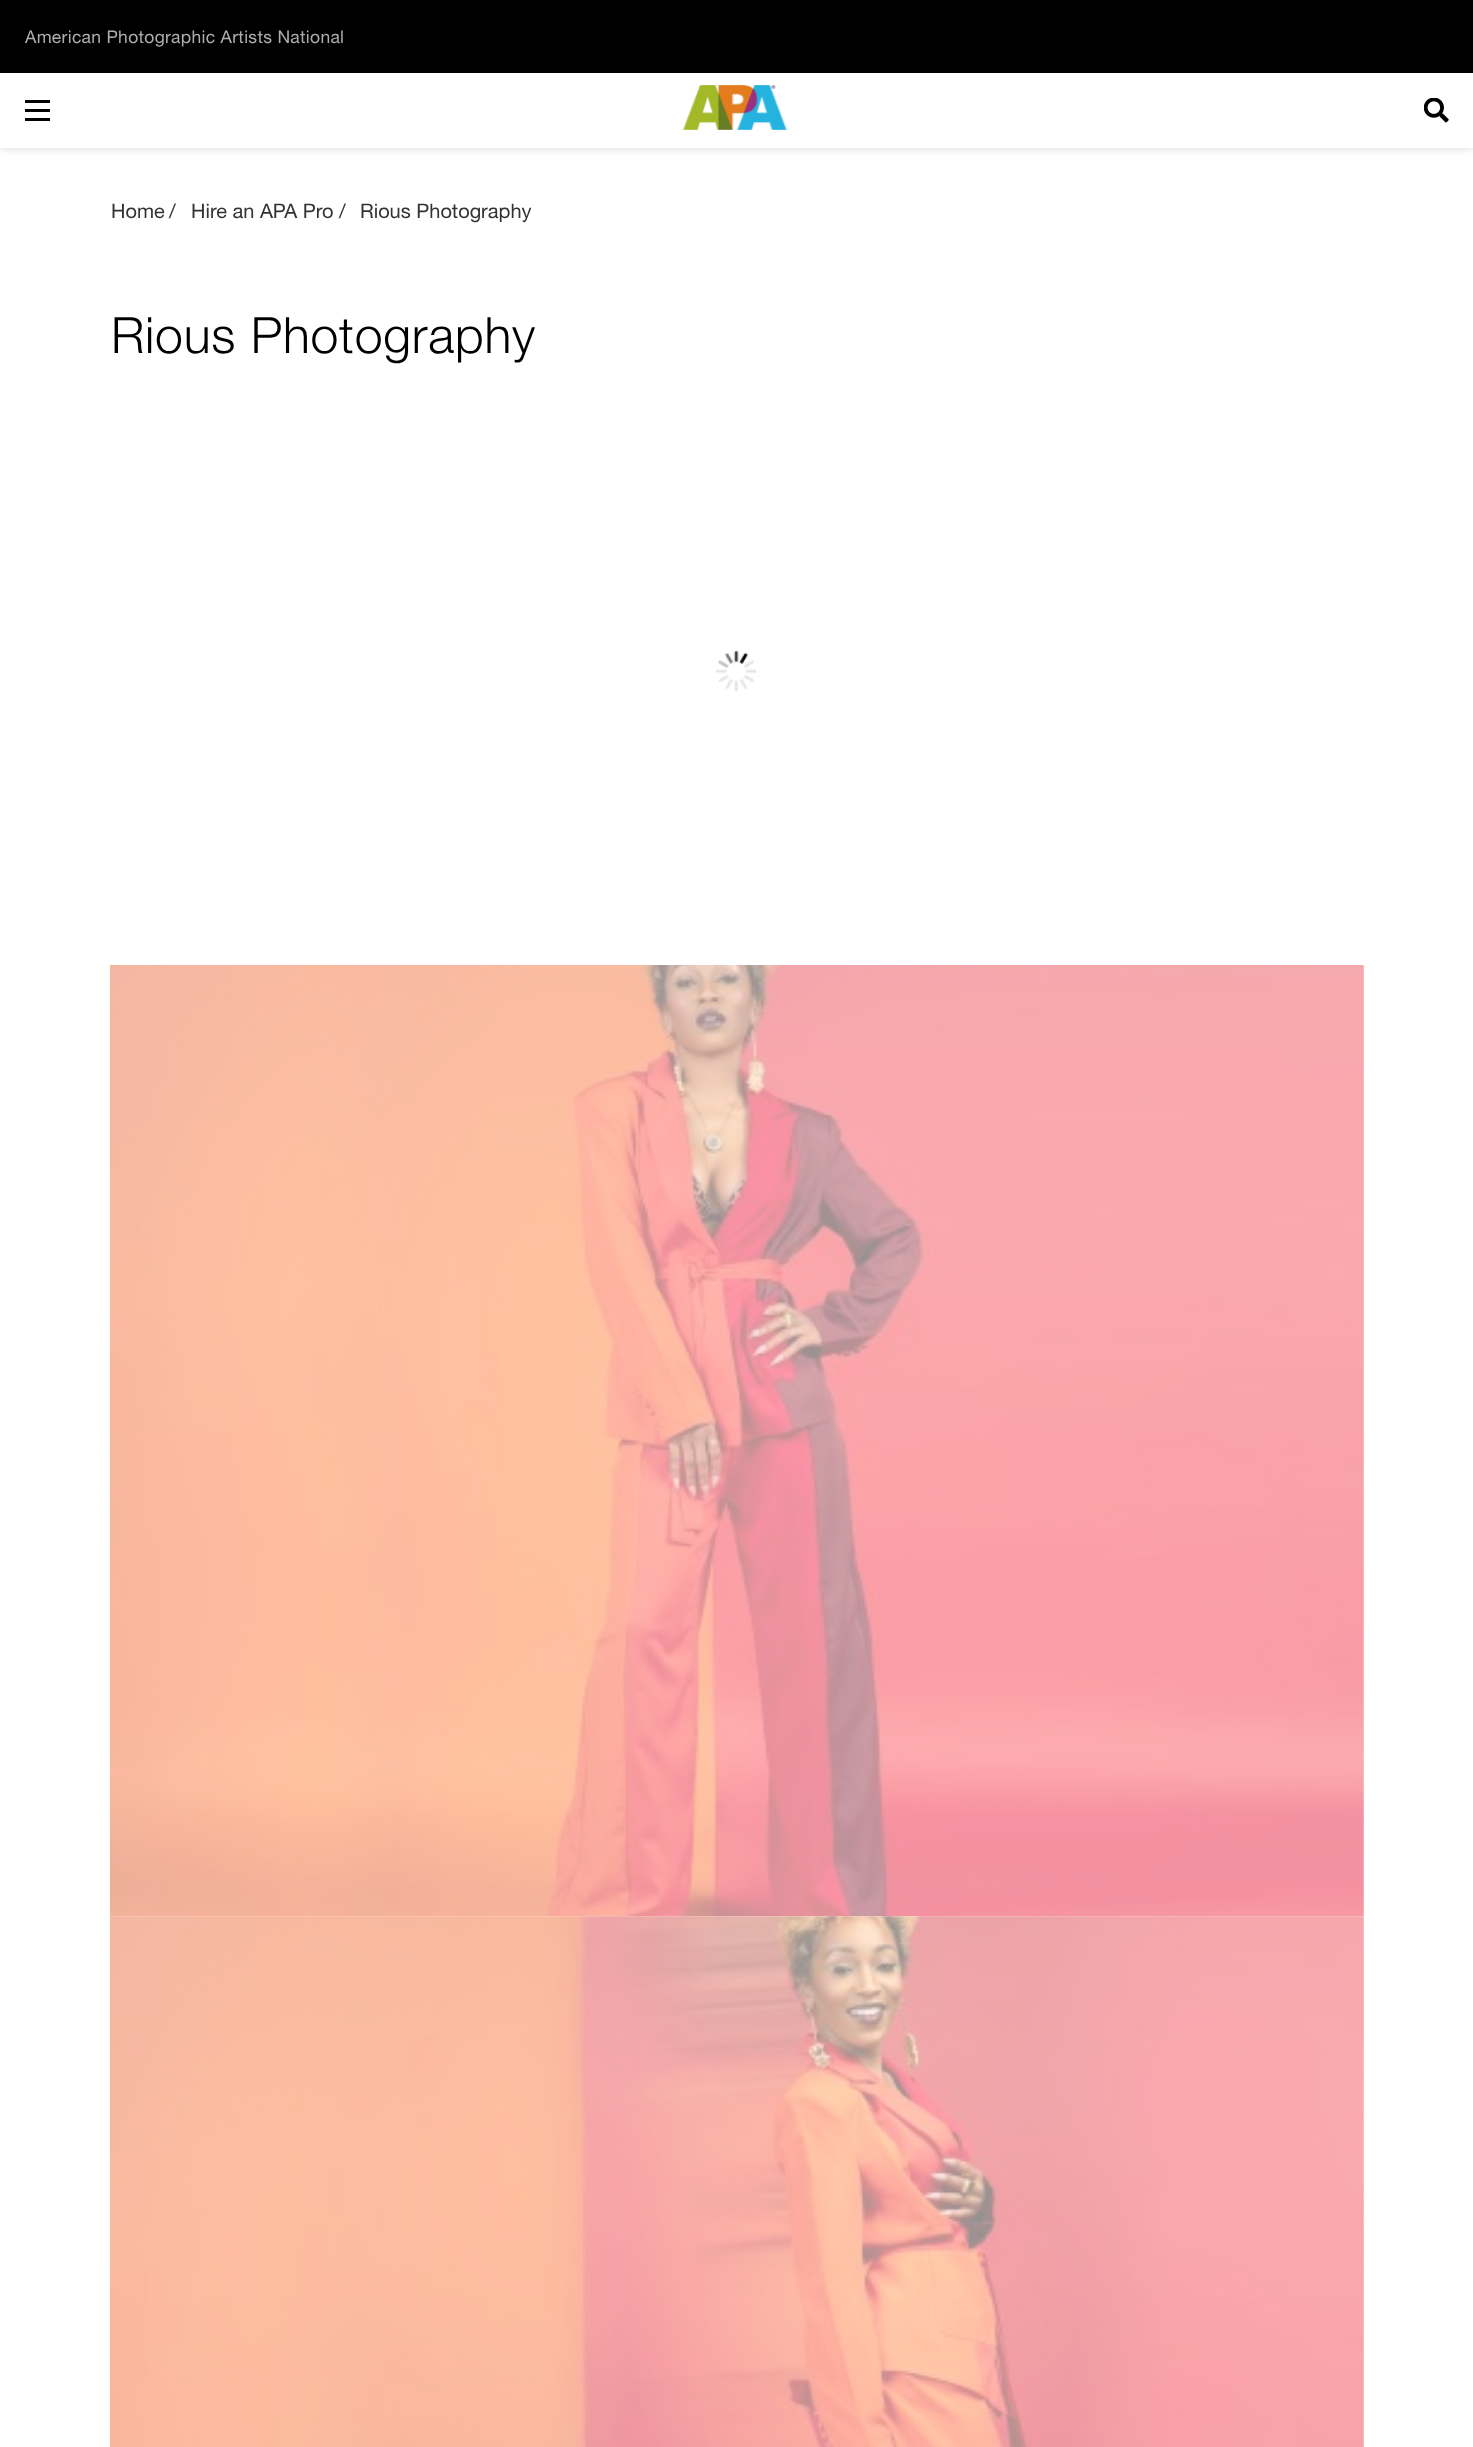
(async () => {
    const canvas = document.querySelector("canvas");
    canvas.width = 1473;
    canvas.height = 2447;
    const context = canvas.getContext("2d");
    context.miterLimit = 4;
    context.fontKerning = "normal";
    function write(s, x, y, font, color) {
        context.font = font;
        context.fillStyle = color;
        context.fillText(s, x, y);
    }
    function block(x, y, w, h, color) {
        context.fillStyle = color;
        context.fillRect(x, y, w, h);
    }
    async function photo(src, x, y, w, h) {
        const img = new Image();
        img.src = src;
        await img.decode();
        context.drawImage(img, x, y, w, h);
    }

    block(0, 0, 1473, 2447, "rgb(255, 255, 255)");
    block(0, 0, 1473, 73, "rgb(0, 0, 0)");
    context.letterSpacing = "0.3px";
    write("American Photographic Artists National", 25, 43, "17.5px Helvetica Neue", "rgb(173, 173, 173)");
    context.fillStyle = "rgba(0, 0, 0, 0.16)";
    context.filter = "blur(4px)";
    context.beginPath();
    context.rect(0, 73, 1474, 75);
    context.fill();
    context.filter = "none";
    block(0, 73, 1473, 75, "rgb(255, 255, 255)");
    await photo("media/1.png", 1424, 98, 25, 25);
    block(25, 100, 25, 3, "rgb(0, 0, 0)");
    block(25, 109, 25, 3, "rgb(0, 0, 0)");
    block(25, 118, 25, 3, "rgb(0, 0, 0)");
    await photo("media/2.png", 682, 85, 106, 45);
    context.letterSpacing = "0px";
    write("Home", 111, 218, "20px Helvetica Neue", "rgb(51, 51, 51)");
    write("/", 169, 218, "20px Helvetica Neue", "rgb(51, 51, 51)");
    write("Hire an APA Pro", 191, 218, "20px Helvetica Neue", "rgb(51, 51, 51)");
    write("/", 339, 218, "20px Helvetica Neue", "rgb(51, 51, 51)");
    write("Rious Photography", 360, 218, "20px Helvetica Neue", "rgb(51, 51, 51)");
    context.letterSpacing = "0.75px";
    write("Rious Photography", 111, 353, "300 50px Helvetica Neue", "rgb(0, 0, 0)");
    await photo("media/3.png", 716, 651, 41, 41);
    await photo("media/4.png", 110, 965, 1254, 952);
    await photo("media/5.png", 110, 1916, 1254, 531);
    block(110, 1916, 1254, 531, "rgba(255, 255, 255, 0.57)");
})();
